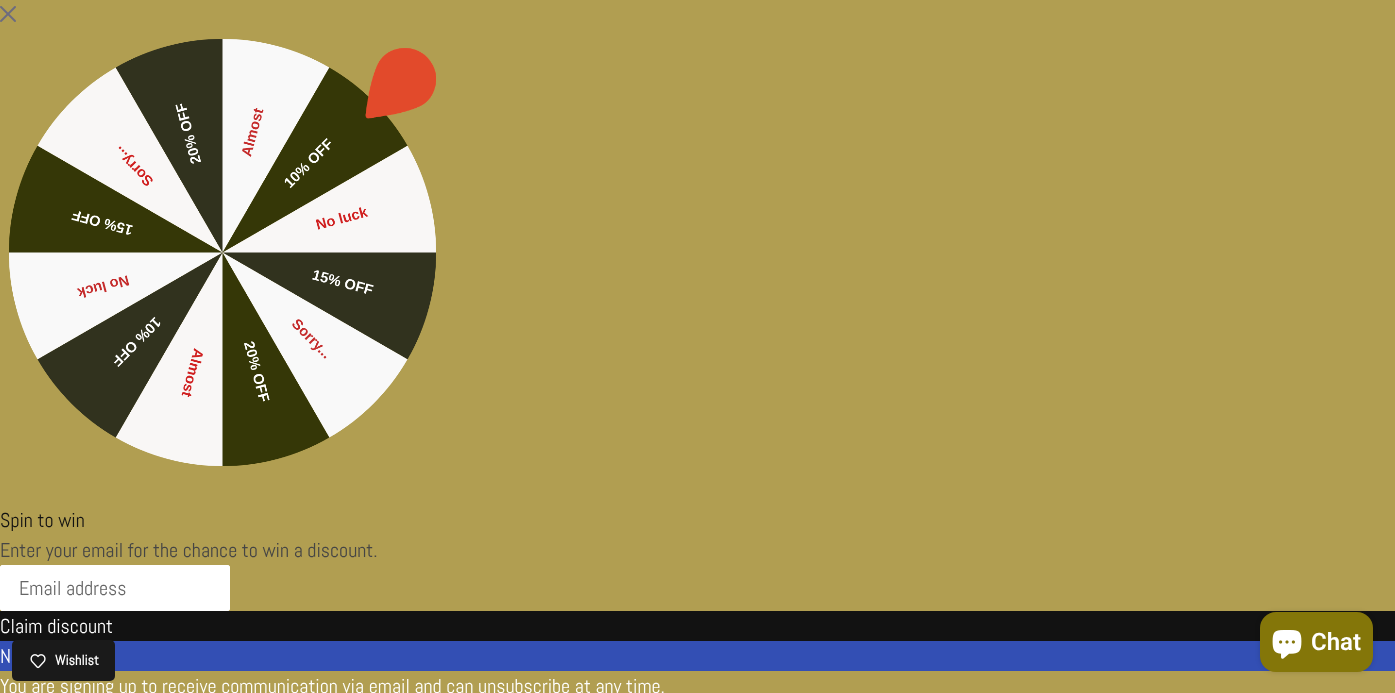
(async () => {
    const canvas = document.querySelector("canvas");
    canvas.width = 1395;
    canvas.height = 693;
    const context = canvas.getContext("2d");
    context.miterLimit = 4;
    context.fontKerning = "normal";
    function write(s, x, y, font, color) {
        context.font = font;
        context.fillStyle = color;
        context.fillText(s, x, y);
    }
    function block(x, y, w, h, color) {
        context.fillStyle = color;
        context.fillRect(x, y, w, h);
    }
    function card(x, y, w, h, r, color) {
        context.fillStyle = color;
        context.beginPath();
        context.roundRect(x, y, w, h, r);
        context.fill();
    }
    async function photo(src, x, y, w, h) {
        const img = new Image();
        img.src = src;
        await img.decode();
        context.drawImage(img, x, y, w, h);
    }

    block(0, 0, 1395, 693, "rgb(177, 158, 81)");
    await photo("media/1.png", 0, 6, 16, 16);
    await photo("media/2.png", 9, 39, 427, 427);
    await photo("media/3.png", 365, 48, 72, 71);
    write("Spin to win", 0, 527, "20px Abel", "rgb(18, 18, 18)");
    write("Enter your email for the chance to win a discount.", 0, 557, "20px Abel", "rgb(69, 69, 69)");
    context.fillStyle = "rgb(255, 255, 255)";
    context.beginPath();
    context.roundRect(0.5, 565.5, 229, 45, 1.5);
    context.fill();
    context.strokeStyle = "rgb(255, 255, 255)";
    context.stroke();
    write("Email address", 19, 595, "20px Abel", "rgb(102, 102, 102)");
    block(0, 611, 1395, 30, "rgb(18, 18, 18)");
    write("Claim discount", 0, 633, "20px Abel", "rgb(255, 255, 255)");
    block(0, 641, 1395, 30, "rgb(51, 79, 180)");
    write("N", 0, 663, "20px Abel", "rgb(255, 255, 255)");
    write("You are signing up to receive communication via email and can unsubscribe at any time.", 0, 693, "20px Abel", "rgb(255, 255, 255)");
    context.fillStyle = "rgba(0, 0, 0, 0.15)";
    context.filter = "blur(2.5px)";
    context.beginPath();
    context.roundRect(1260, 612, 113, 60, 16);
    context.fill();
    context.filter = "none";
    card(1260, 612, 113, 60, 16, "rgb(132, 118, 9)");
    await photo("media/4.png", 1272, 630, 30, 29);
    write("Chat", 1311, 650, "600 24px Roboto", "rgb(255, 255, 255)");
    card(12, 640, 103, 41, 5, "rgb(26, 26, 26)");
    await photo("media/5.png", 30, 654, 16, 15);
    write("Wishlist", 55, 665, "bold 14px Abel", "rgb(255, 255, 255)");
})();
